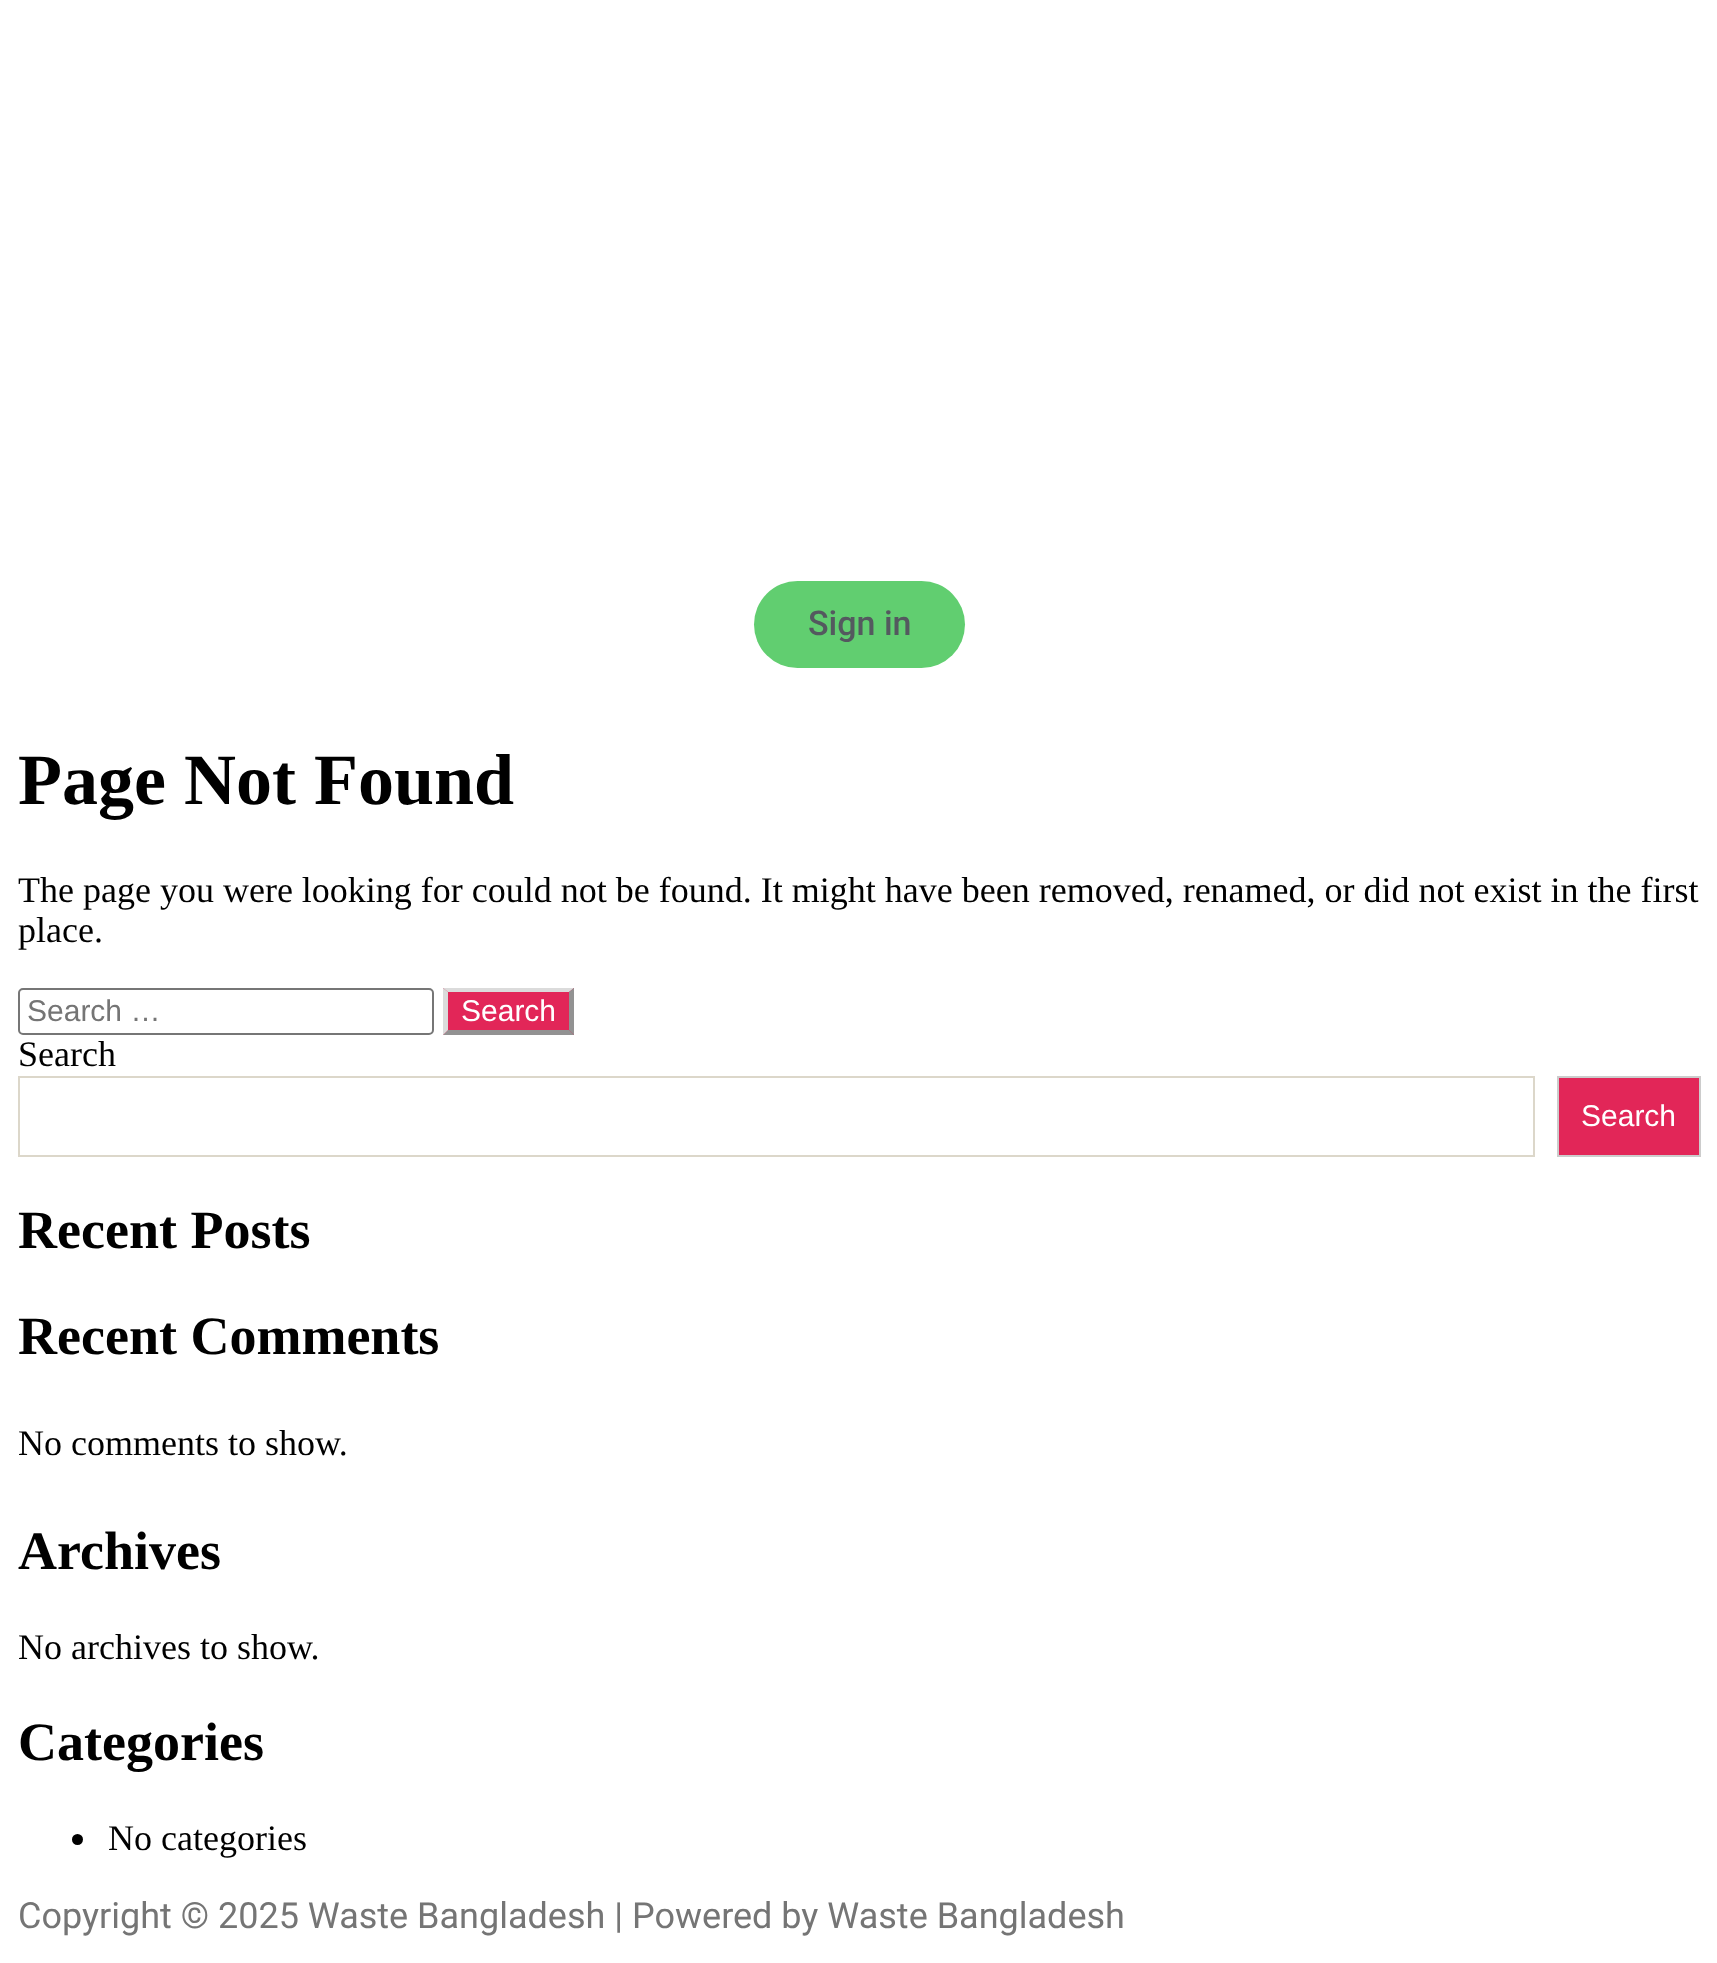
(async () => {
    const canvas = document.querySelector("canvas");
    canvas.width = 1717;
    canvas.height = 1963;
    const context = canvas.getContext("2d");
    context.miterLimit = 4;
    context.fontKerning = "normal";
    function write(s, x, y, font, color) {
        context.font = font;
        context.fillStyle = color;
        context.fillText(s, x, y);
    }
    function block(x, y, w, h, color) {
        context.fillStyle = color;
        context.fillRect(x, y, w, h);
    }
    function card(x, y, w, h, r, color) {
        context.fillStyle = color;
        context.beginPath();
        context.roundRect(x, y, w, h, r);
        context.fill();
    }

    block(0, 0, 1717, 1963, "rgb(255, 255, 255)");
    card(754, 581, 211, 87, 43.5, "rgb(97, 206, 112)");
    write("Sign in", 808, 635, "500 34px Roboto", "rgb(84, 89, 95)");
    write("Page Not Found", 18, 804, "bold 72px Liberation Serif", "rgb(0, 0, 0)");
    write("The page you were looking for could not be found. It might have been removed, renamed, or did not exist in the first", 18, 902, "36px Liberation Serif", "rgb(0, 0, 0)");
    write("place.", 18, 942, "36px Liberation Serif", "rgb(0, 0, 0)");
    context.beginPath();
    context.roundRect(19, 989, 414, 45, 4);
    context.strokeStyle = "rgb(118, 118, 118)";
    context.lineWidth = 2;
    context.stroke();
    write("Search …", 27, 1021, "30px Liberation Sans", "rgb(117, 117, 117)");
    block(443, 988, 131, 47, "rgb(226, 38, 88)");
    context.fillStyle = "rgb(219, 219, 219)";
    context.beginPath();
    context.moveTo(443, 988);
    context.lineTo(574, 988);
    context.lineTo(569, 992);
    context.lineTo(448, 992);
    context.closePath();
    context.fill();
    context.fillStyle = "rgb(146, 146, 146)";
    context.beginPath();
    context.moveTo(574, 988);
    context.lineTo(574, 1035);
    context.lineTo(569, 1030);
    context.lineTo(569, 992);
    context.closePath();
    context.fill();
    context.beginPath();
    context.moveTo(574, 1035);
    context.lineTo(443, 1035);
    context.lineTo(448, 1030);
    context.lineTo(569, 1030);
    context.closePath();
    context.fill();
    context.fillStyle = "rgb(219, 219, 219)";
    context.beginPath();
    context.moveTo(443, 1035);
    context.lineTo(443, 988);
    context.lineTo(448, 992);
    context.lineTo(448, 1030);
    context.closePath();
    context.fill();
    write("Search", 461, 1021, "30px Liberation Sans", "rgb(255, 255, 255)");
    write("Search", 18, 1066, "36px Liberation Serif", "rgb(0, 0, 0)");
    context.strokeStyle = "rgb(220, 215, 202)";
    context.strokeRect(19, 1077, 1515, 79);
    context.fillStyle = "rgb(226, 38, 88)";
    context.beginPath();
    context.rect(1558, 1077, 142, 79);
    context.fill();
    context.strokeStyle = "rgb(204, 204, 204)";
    context.stroke();
    write("Search", 1581, 1126, "30px Liberation Sans", "rgb(255, 255, 255)");
    write("Recent Posts", 18, 1248, "bold 54px Liberation Serif", "rgb(0, 0, 0)");
    write("Recent Comments", 18, 1354, "bold 54px Liberation Serif", "rgb(0, 0, 0)");
    write("No comments to show.", 18, 1455, "36px Liberation Serif", "rgb(0, 0, 0)");
    write("Archives", 18, 1569, "bold 54px Liberation Serif", "rgb(0, 0, 0)");
    write("No archives to show.", 18, 1659, "36px Liberation Serif", "rgb(0, 0, 0)");
    write("Categories", 18, 1760, "bold 54px Liberation Serif", "rgb(0, 0, 0)");
    context.beginPath();
    context.arc(77.5, 1839.5, 5.5, 0, Math.PI * 2);
    context.fill();
    write("No categories", 108, 1850, "36px Liberation Serif", "rgb(0, 0, 0)");
    write("Copyright © 2025 Waste Bangladesh | Powered by Waste Bangladesh", 18, 1928, "36px Roboto", "rgb(117, 117, 117)");
})();
